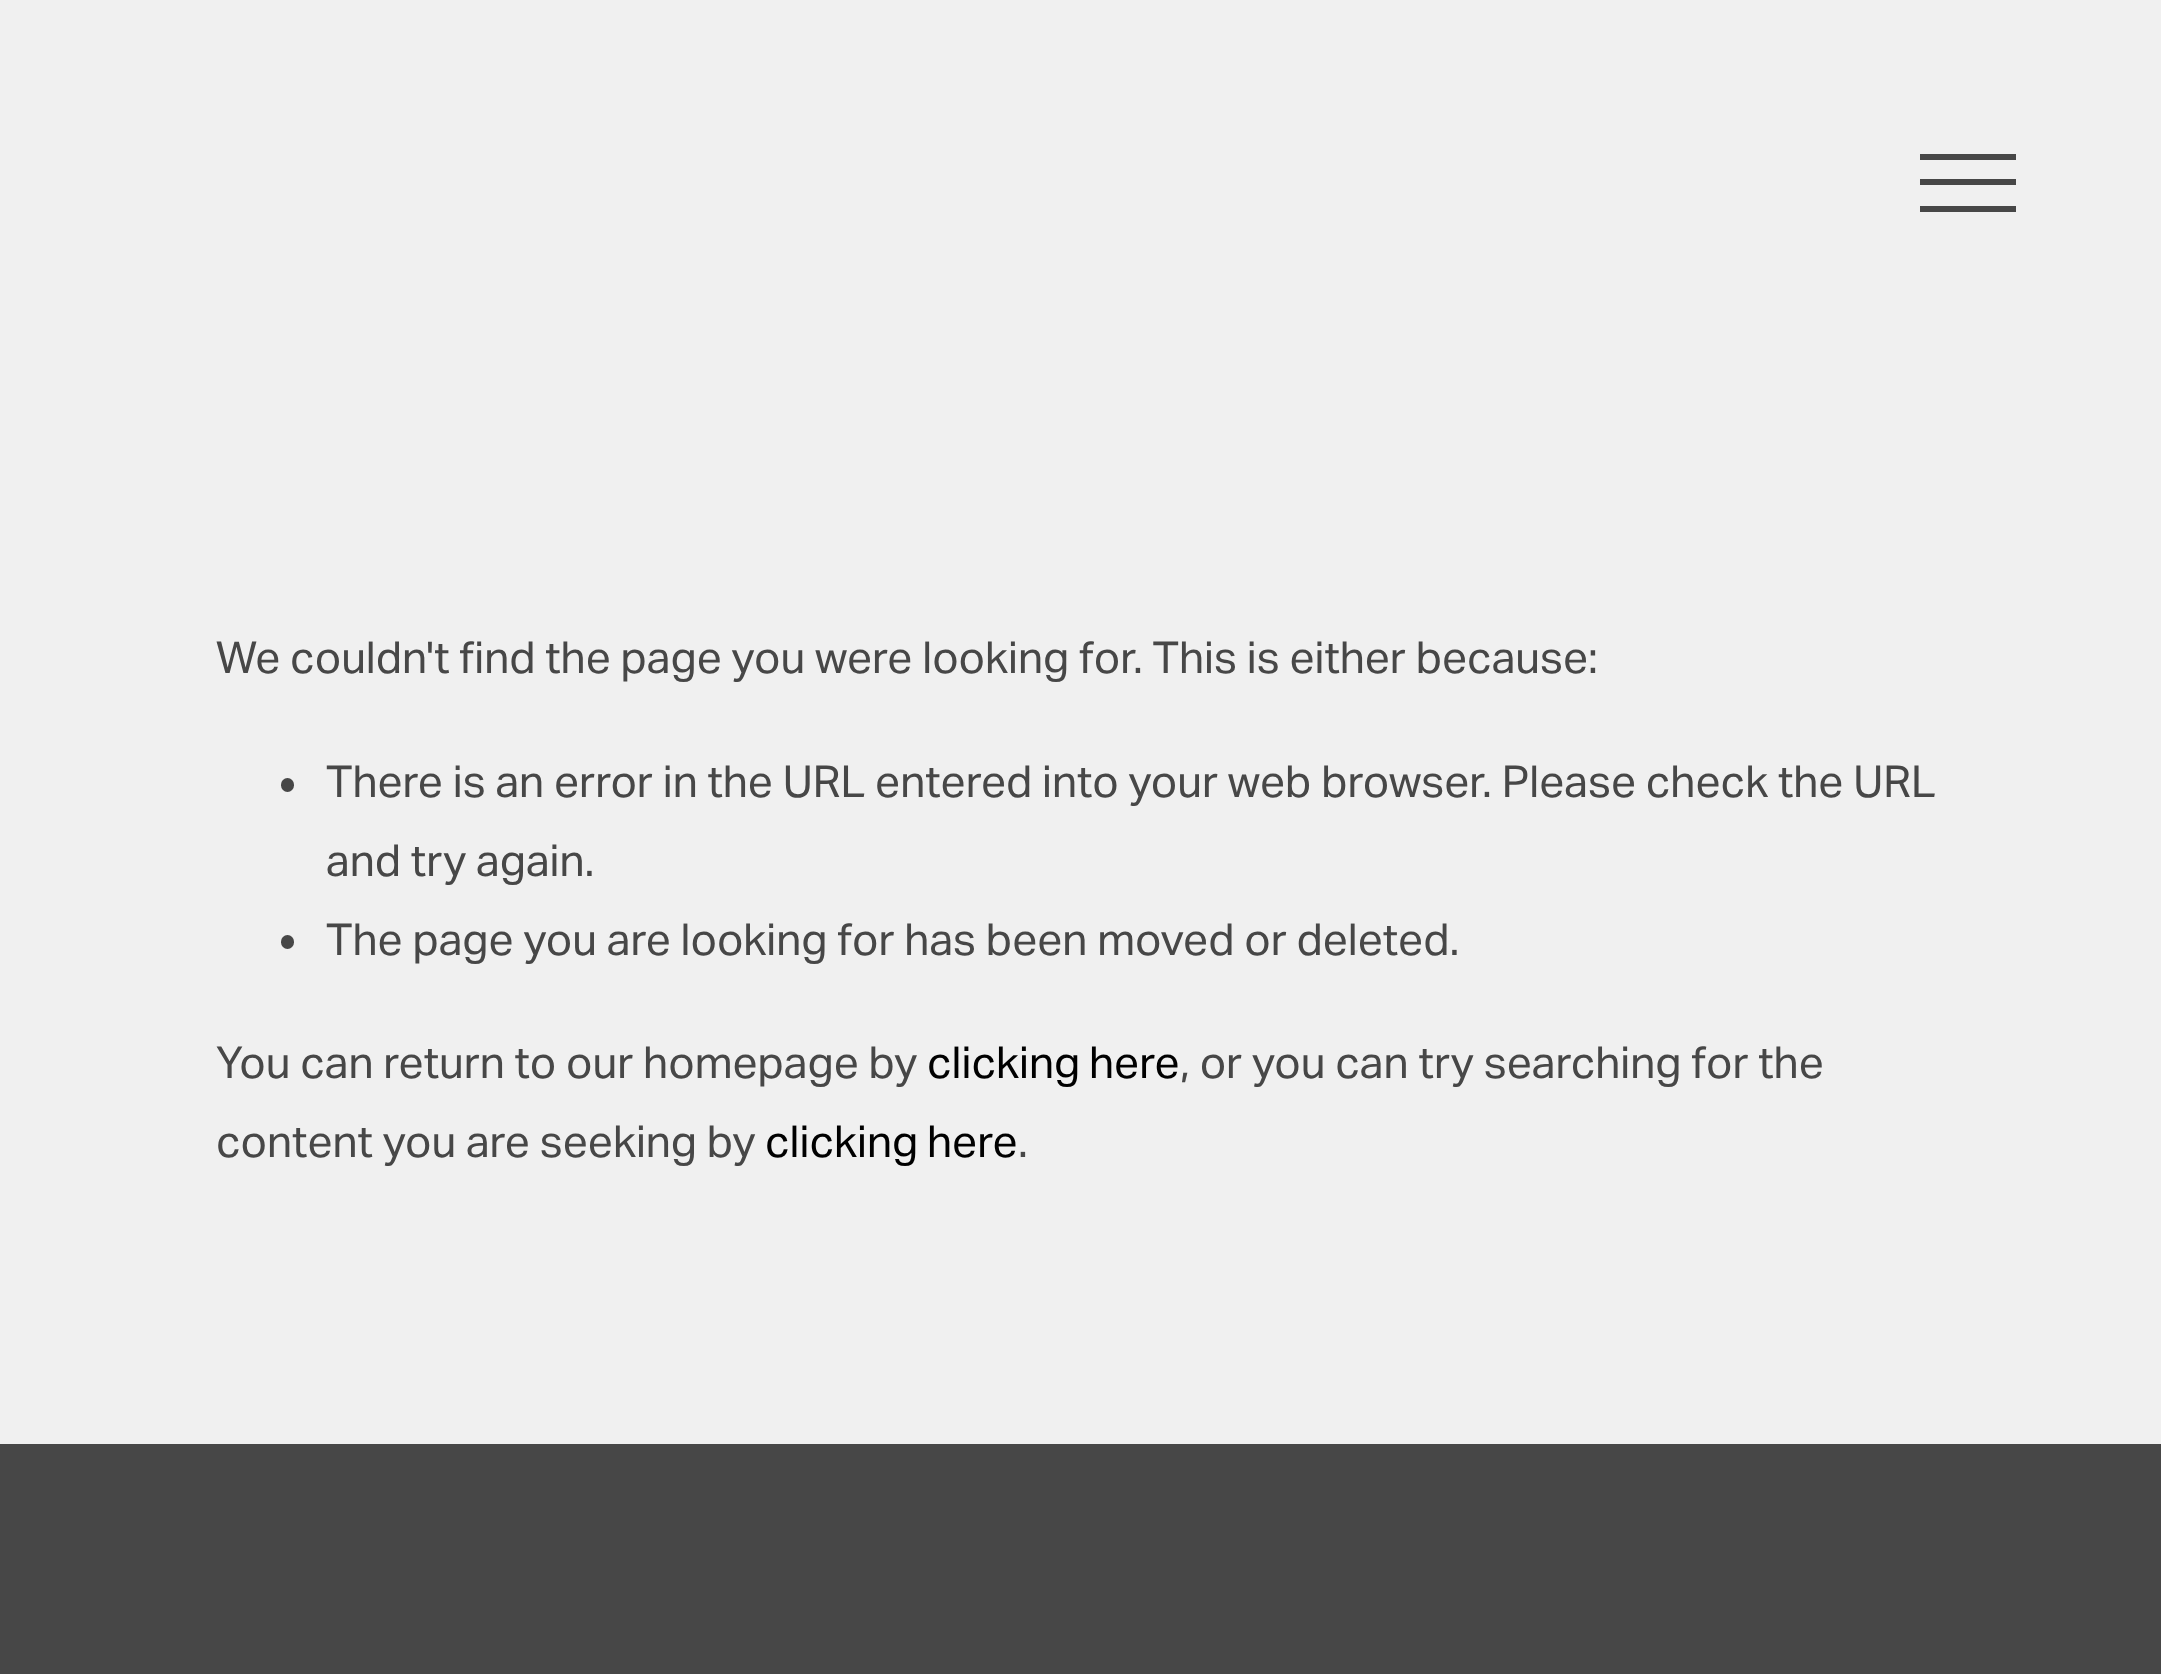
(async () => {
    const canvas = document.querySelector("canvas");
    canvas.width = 2161;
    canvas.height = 1674;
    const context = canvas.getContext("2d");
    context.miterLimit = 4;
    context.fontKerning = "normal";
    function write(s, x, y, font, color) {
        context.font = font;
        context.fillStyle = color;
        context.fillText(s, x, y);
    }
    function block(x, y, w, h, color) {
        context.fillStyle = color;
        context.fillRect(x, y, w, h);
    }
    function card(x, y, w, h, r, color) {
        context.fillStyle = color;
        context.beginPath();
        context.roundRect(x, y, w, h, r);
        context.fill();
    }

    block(0, 0, 2161, 1674, "rgb(240, 240, 240)");
    block(1920, 154, 96, 6, "rgb(71, 71, 71)");
    block(1920, 179, 96, 6, "rgb(71, 71, 71)");
    block(1920, 206, 96, 6, "rgb(71, 71, 71)");
    write("We couldn't find the page you were looking for. This is either because:", 216, 673, "44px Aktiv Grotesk", "rgb(71, 71, 71)");
    card(281, 778, 13, 14, 6.5, "rgb(71, 71, 71)");
    write("There is an error in the URL entered into your web browser. Please check the URL", 326, 797, "44px Aktiv Grotesk", "rgb(71, 71, 71)");
    write("and try again.", 326, 876, "44px Aktiv Grotesk", "rgb(71, 71, 71)");
    card(281, 935, 13, 14, 6.5, "rgb(71, 71, 71)");
    write("The page you are looking for has been moved or deleted.", 326, 955, "44px Aktiv Grotesk", "rgb(71, 71, 71)");
    write("You can return to our homepage by", 216, 1078, "44px Aktiv Grotesk", "rgb(71, 71, 71)");
    context.wordSpacing = "-1px";
    write("clicking here", 927, 1078, "44px Aktiv Grotesk", "rgb(0, 0, 0)");
    context.wordSpacing = "0px";
    write(", or you can try searching for the", 1180, 1078, "44px Aktiv Grotesk", "rgb(71, 71, 71)");
    write("content you are seeking by", 216, 1157, "44px Aktiv Grotesk", "rgb(71, 71, 71)");
    context.wordSpacing = "-1px";
    write("clicking here", 765, 1157, "44px Aktiv Grotesk", "rgb(0, 0, 0)");
    context.wordSpacing = "0px";
    write(".", 1018, 1157, "44px Aktiv Grotesk", "rgb(71, 71, 71)");
    block(0, 1444, 2161, 230, "rgb(71, 71, 71)");
})();
